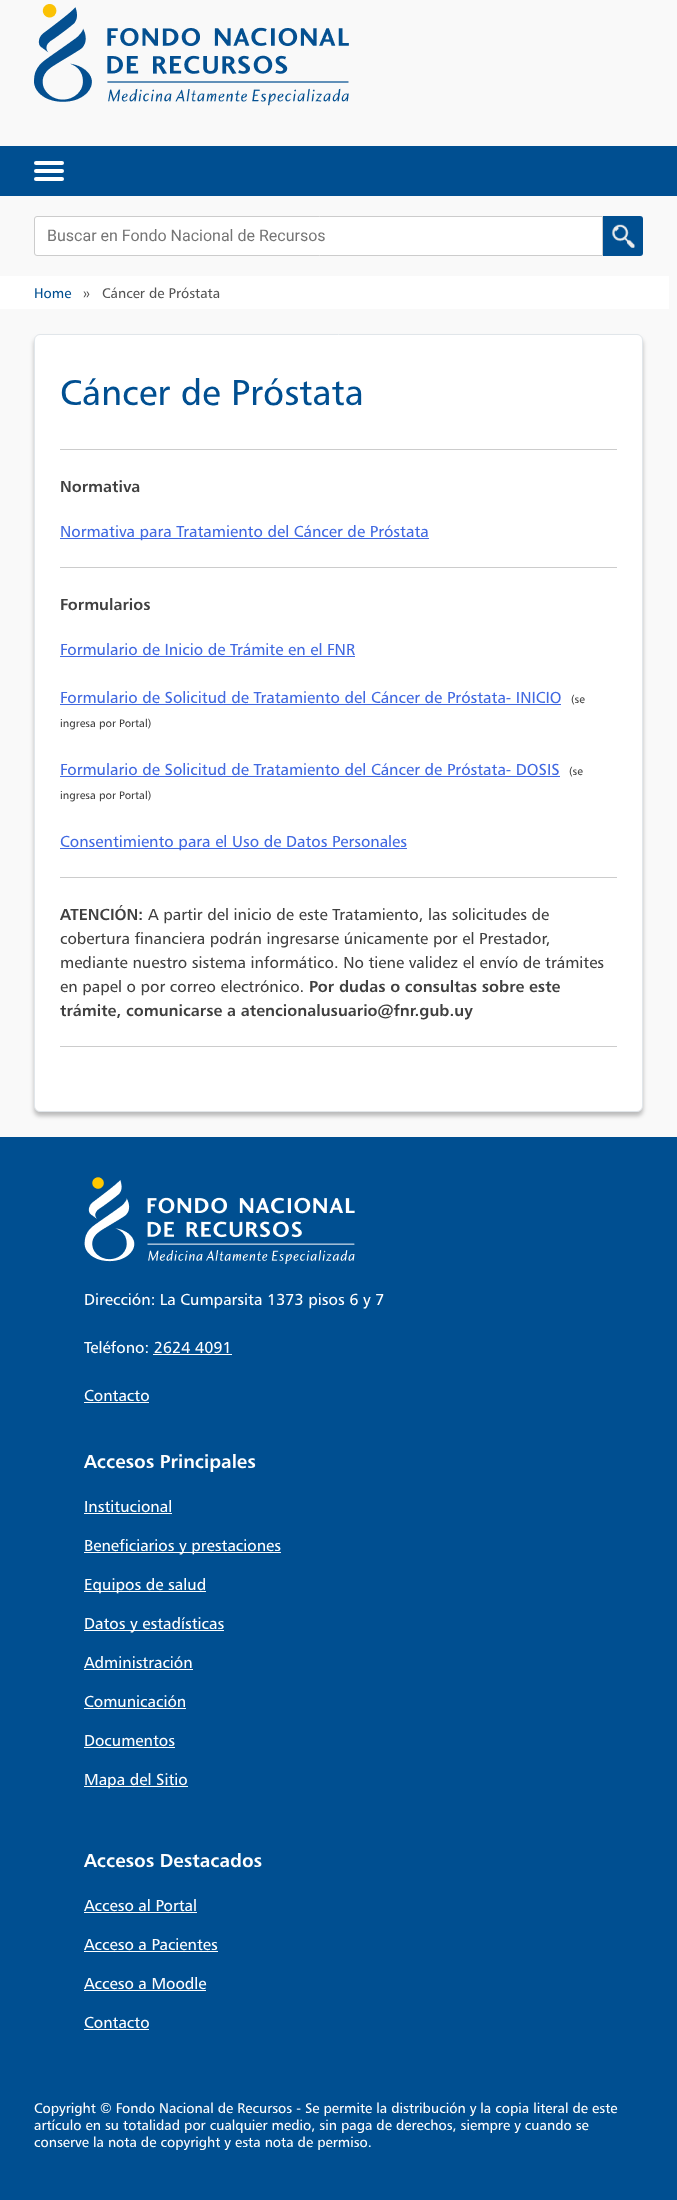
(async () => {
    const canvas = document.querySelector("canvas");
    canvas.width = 677;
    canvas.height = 2200;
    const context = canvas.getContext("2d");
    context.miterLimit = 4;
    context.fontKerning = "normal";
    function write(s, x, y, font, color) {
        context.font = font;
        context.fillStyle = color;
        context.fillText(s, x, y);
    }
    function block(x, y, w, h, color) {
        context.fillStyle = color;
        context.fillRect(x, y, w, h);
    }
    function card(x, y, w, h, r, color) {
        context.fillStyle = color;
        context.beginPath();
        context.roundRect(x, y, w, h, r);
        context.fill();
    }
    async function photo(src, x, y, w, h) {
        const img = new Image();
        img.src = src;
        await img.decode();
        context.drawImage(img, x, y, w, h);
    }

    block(0, 0, 677, 2200, "rgb(249, 249, 249)");
    await photo("media/1.png", 34, 4, 315, 102);
    block(0, 146, 677, 50, "rgb(0, 79, 145)");
    card(34, 169, 30, 4, 2, "rgb(255, 255, 255)");
    card(34, 161, 30, 4, 2, "rgb(255, 255, 255)");
    card(34, 177, 30, 4, 2, "rgb(255, 255, 255)");
    context.beginPath();
    context.roundRect(34.5, 216.5, 568, 39, [2.5, 0, 0, 2.5]);
    context.fill();
    context.strokeStyle = "rgb(204, 204, 204)";
    context.stroke();
    write("Buscar en Fondo Nacional de Recursos", 47, 241, "16px Roboto", "rgb(117, 117, 117)");
    context.fillStyle = "rgb(0, 79, 145)";
    context.beginPath();
    context.roundRect(603, 216, 40, 40, [0, 3, 3, 0]);
    context.fill();
    await photo("media/2.png", 611, 224, 24, 24);
    block(0, 276, 669, 33, "rgb(255, 255, 255)");
    write("Home", 34, 298, "14px 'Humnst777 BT'", "rgb(0, 79, 145)");
    write("»", 83, 298, "14px 'Humnst777 BT'", "rgb(85, 85, 85)");
    write("Cáncer de Próstata", 102, 298, "14px 'Humnst777 BT'", "rgb(85, 85, 85)");
    context.fillStyle = "rgba(0, 0, 0, 0.25)";
    context.filter = "blur(2px)";
    context.beginPath();
    context.roundRect(34, 338, 609, 778, 6);
    context.fill();
    context.filter = "none";
    context.fillStyle = "rgb(255, 255, 255)";
    context.beginPath();
    context.roundRect(34.5, 334.5, 608, 777, 5.5);
    context.fill();
    context.strokeStyle = "rgb(225, 230, 234)";
    context.stroke();
    write("Cáncer de Próstata", 60, 405, "36px 'Humnst777 BT'", "rgb(0, 79, 145)");
    block(60, 449, 557, 1, "rgb(204, 204, 204)");
    write("Normativa", 60, 492, "bold 16px 'Humnst777 BT'", "rgb(64, 64, 64)");
    block(60, 538, 369, 1, "rgb(65, 105, 225)");
    write("Normativa para Tratamiento del Cáncer de Próstata", 60, 537, "16px 'Humnst777 BT'", "rgb(65, 105, 225)");
    block(60, 567, 557, 1, "rgb(204, 204, 204)");
    write("Formularios", 60, 610, "bold 16px 'Humnst777 BT'", "rgb(64, 64, 64)");
    write("Formulario de Inicio de Trámite en el FNR", 60, 655, "16px 'Humnst777 BT'", "rgb(65, 105, 225)");
    block(60, 656, 295, 1, "rgb(65, 105, 225)");
    write("Formulario de Solicitud de Tratamiento del Cáncer de Próstata- INICIO", 60, 703, "16px 'Humnst777 BT'", "rgb(65, 105, 225)");
    block(60, 704, 501, 1, "rgb(65, 105, 225)");
    write("(se", 571, 703, "11px 'Humnst777 BT'", "rgb(64, 64, 64)");
    write("ingresa por Portal)", 60, 727, "11px 'Humnst777 BT'", "rgb(64, 64, 64)");
    write("Formulario de Solicitud de Tratamiento del Cáncer de Próstata- DOSIS", 60, 775, "16px 'Humnst777 BT'", "rgb(65, 105, 225)");
    block(60, 776, 500, 1, "rgb(65, 105, 225)");
    write("(se", 569, 775, "11px 'Humnst777 BT'", "rgb(64, 64, 64)");
    write("ingresa por Portal)", 60, 799, "11px 'Humnst777 BT'", "rgb(64, 64, 64)");
    block(60, 848, 347, 1, "rgb(65, 105, 225)");
    write("Consentimiento para el Uso de Datos Personales", 60, 847, "16px 'Humnst777 BT'", "rgb(65, 105, 225)");
    block(60, 877, 557, 1, "rgb(204, 204, 204)");
    write("ATENCIÓN:", 60, 920, "bold 16px 'Humnst777 BT'", "rgb(64, 64, 64)");
    write("A partir del inicio de este Tratamiento, las solicitudes de", 148, 920, "16px 'Humnst777 BT'", "rgb(64, 64, 64)");
    write("cobertura financiera podrán ingresarse únicamente por el Prestador,", 60, 944, "16px 'Humnst777 BT'", "rgb(64, 64, 64)");
    write("mediante nuestro sistema informático. No tiene validez el envío de trámites", 60, 968, "16px 'Humnst777 BT'", "rgb(64, 64, 64)");
    write("en papel o por correo electrónico.", 60, 992, "16px 'Humnst777 BT'", "rgb(64, 64, 64)");
    write("Por dudas o consultas sobre este", 309, 992, "bold 16px 'Humnst777 BT'", "rgb(64, 64, 64)");
    write("trámite, comunicarse a atencionalusuario@fnr.gub.uy", 60, 1016, "bold 16px 'Humnst777 BT'", "rgb(64, 64, 64)");
    block(60, 1046, 557, 1, "rgb(204, 204, 204)");
    block(0, 1137, 677, 1063, "rgb(0, 79, 145)");
    await photo("media/3.png", 84, 1177, 271, 87);
    write("Dirección: La Cumparsita 1373 pisos 6 y 7", 84, 1305, "16px 'Humnst777 BT'", "rgb(255, 255, 255)");
    write("Teléfono: 2624 4091", 84, 1353, "16px 'Humnst777 BT'", "rgb(255, 255, 255)");
    block(153, 1354, 79, 1, "rgb(255, 255, 255)");
    write("Contacto", 84, 1401, "16px 'Humnst777 BT'", "rgb(255, 255, 255)");
    block(84, 1402, 65, 1, "rgb(255, 255, 255)");
    write("Accesos Principales", 84, 1468, "bold 18.75px 'Humnst777 BT'", "rgb(255, 255, 255)");
    write("Institucional", 84, 1512, "16px 'Humnst777 BT'", "rgb(255, 255, 255)");
    block(84, 1513, 88, 1, "rgb(255, 255, 255)");
    block(84, 1552, 197, 1, "rgb(255, 255, 255)");
    write("Beneficiarios y prestaciones", 84, 1551, "16px 'Humnst777 BT'", "rgb(255, 255, 255)");
    block(84, 1591, 122, 1, "rgb(255, 255, 255)");
    write("Equipos de salud", 84, 1590, "16px 'Humnst777 BT'", "rgb(255, 255, 255)");
    block(84, 1630, 140, 1, "rgb(255, 255, 255)");
    write("Datos y estadísticas", 84, 1629, "16px 'Humnst777 BT'", "rgb(255, 255, 255)");
    write("Administración", 84, 1668, "16px 'Humnst777 BT'", "rgb(255, 255, 255)");
    block(84, 1669, 109, 1, "rgb(255, 255, 255)");
    write("Comunicación", 84, 1707, "16px 'Humnst777 BT'", "rgb(255, 255, 255)");
    block(84, 1708, 102, 1, "rgb(255, 255, 255)");
    write("Documentos", 84, 1746, "16px 'Humnst777 BT'", "rgb(255, 255, 255)");
    block(84, 1747, 91, 1, "rgb(255, 255, 255)");
    block(84, 1786, 104, 1, "rgb(255, 255, 255)");
    write("Mapa del Sitio", 84, 1785, "16px 'Humnst777 BT'", "rgb(255, 255, 255)");
    write("Accesos Destacados", 84, 1867, "bold 18.75px 'Humnst777 BT'", "rgb(255, 255, 255)");
    write("Acceso al Portal", 84, 1911, "16px 'Humnst777 BT'", "rgb(255, 255, 255)");
    block(84, 1912, 113, 1, "rgb(255, 255, 255)");
    write("Acceso a Pacientes", 84, 1950, "16px 'Humnst777 BT'", "rgb(255, 255, 255)");
    block(84, 1951, 134, 1, "rgb(255, 255, 255)");
    write("Acceso a Moodle", 84, 1989, "16px 'Humnst777 BT'", "rgb(255, 255, 255)");
    block(84, 1990, 122, 1, "rgb(255, 255, 255)");
    write("Contacto", 84, 2028, "16px 'Humnst777 BT'", "rgb(255, 255, 255)");
    block(84, 2029, 65, 1, "rgb(255, 255, 255)");
    write("Copyright © Fondo Nacional de Recursos - Se permite la distribución y la copia literal de este", 34, 2113, "14px 'Humnst777 BT'", "rgb(255, 255, 255)");
    write("artículo en su totalidad por cualquier medio, sin paga de derechos, siempre y cuando se", 34, 2130, "14px 'Humnst777 BT'", "rgb(255, 255, 255)");
    write("conserve la nota de copyright y esta nota de permiso.", 34, 2147, "14px 'Humnst777 BT'", "rgb(255, 255, 255)");
})();
